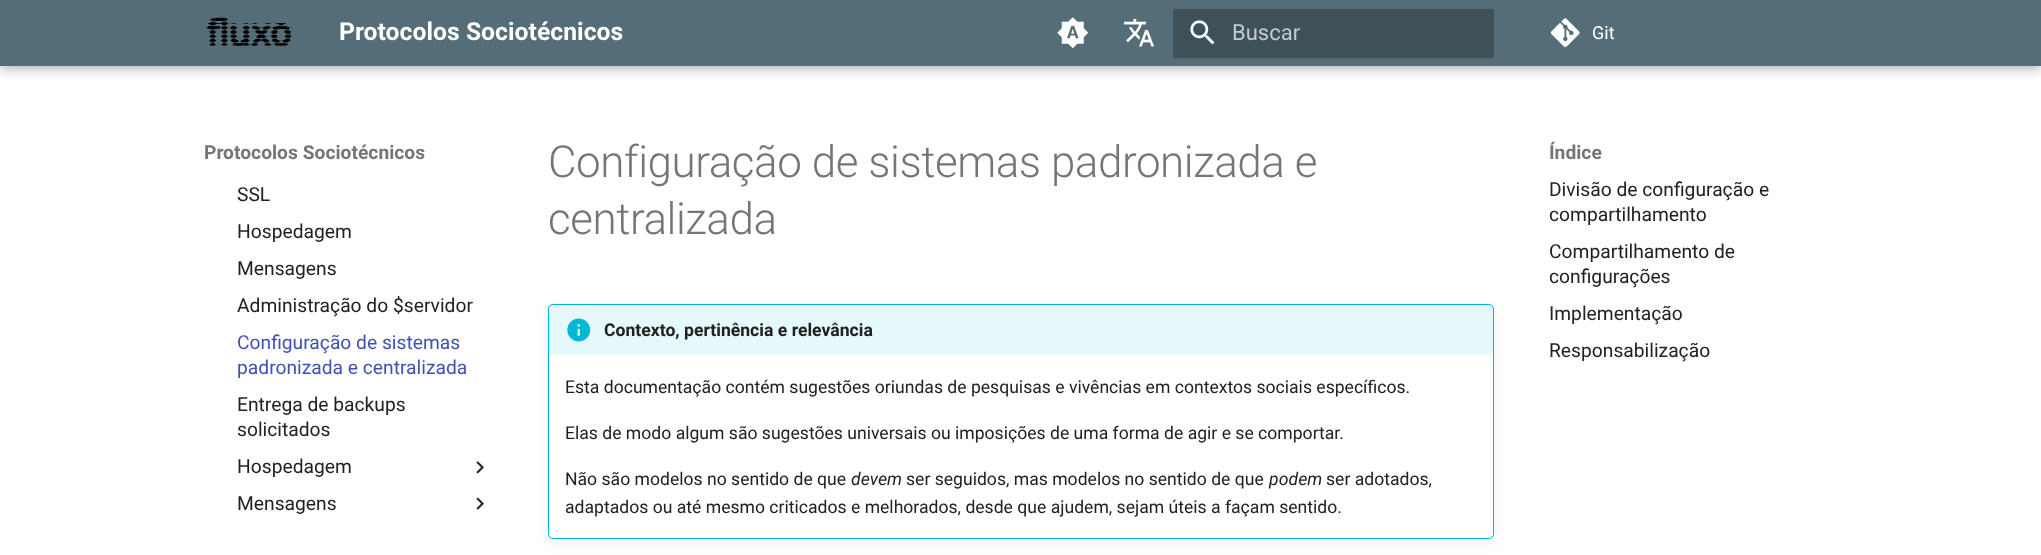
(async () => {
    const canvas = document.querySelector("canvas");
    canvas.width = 2041;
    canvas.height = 555;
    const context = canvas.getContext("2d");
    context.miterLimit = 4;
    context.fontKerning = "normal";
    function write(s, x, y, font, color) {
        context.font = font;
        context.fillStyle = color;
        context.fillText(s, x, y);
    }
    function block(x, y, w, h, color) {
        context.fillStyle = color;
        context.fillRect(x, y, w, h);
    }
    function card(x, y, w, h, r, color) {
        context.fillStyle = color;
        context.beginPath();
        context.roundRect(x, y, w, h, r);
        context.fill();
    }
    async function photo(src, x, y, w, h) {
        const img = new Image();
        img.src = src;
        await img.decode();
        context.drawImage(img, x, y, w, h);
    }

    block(0, 0, 2041, 555, "rgb(255, 255, 255)");
    context.fillStyle = "rgba(0, 0, 0, 0.2)";
    context.filter = "blur(5.5px)";
    context.beginPath();
    context.rect(0, 5, 2041, 66);
    context.fill();
    context.filter = "none";
    context.fillStyle = "rgba(0, 0, 0, 0.1)";
    context.filter = "blur(3px)";
    context.beginPath();
    context.rect(0, 0, 2041, 66);
    context.fill();
    context.filter = "none";
    block(0, 0, 2041, 66, "rgb(84, 109, 120)");
    await photo("media/1.png", 205, 17, 88, 29);
    write("Protocolos Sociotécnicos", 339, 40, "bold 24.75px Roboto", "rgb(255, 255, 255)");
    await photo("media/2.png", 1057, 17, 32, 32);
    await photo("media/3.png", 1123, 19, 31, 28);
    card(1173, 9, 321, 49, 2.5, "rgb(62, 81, 89)");
    await photo("media/4.png", 1190, 20, 25, 25);
    write("Buscar", 1232, 40, "22px Roboto", "rgb(197, 203, 205)");
    await photo("media/5.png", 1550, 18, 30, 30);
    write("Git", 1592, 39, "18px Roboto", "rgb(255, 255, 255)");
    write("Protocolos Sociotécnicos", 204, 159, "bold 19.25px Roboto", "rgb(117, 117, 117)");
    write("SSL", 237, 201, "19.25px Roboto", "rgb(33, 33, 33)");
    write("Hospedagem", 237, 238, "19.25px Roboto", "rgb(33, 33, 33)");
    write("Mensagens", 237, 275, "19.25px Roboto", "rgb(33, 33, 33)");
    write("Administração do $servidor", 237, 312, "19.25px Roboto", "rgb(33, 33, 33)");
    write("Configuração de sistemas", 237, 349, "19.25px Roboto", "rgb(64, 81, 181)");
    write("padronizada e centralizada", 237, 374, "19.25px Roboto", "rgb(64, 81, 181)");
    write("Entrega de backups", 237, 411, "19.25px Roboto", "rgb(33, 33, 33)");
    write("solicitados", 237, 436, "19.25px Roboto", "rgb(33, 33, 33)");
    write("Hospedagem", 237, 473, "19.25px Roboto", "rgb(33, 33, 33)");
    await photo("media/6.png", 476, 461, 8, 13);
    write("Mensagens", 237, 510, "19.25px Roboto", "rgb(33, 33, 33)");
    await photo("media/7.png", 476, 497, 8, 13);
    context.letterSpacing = "-0.45px";
    write("Configuração de sistemas padronizada e", 548, 177, "300 44px Roboto", "rgb(117, 117, 117)");
    write("centralizada", 548, 234, "300 44px Roboto", "rgb(117, 117, 117)");
    context.fillStyle = "rgba(0, 0, 0, 0.1)";
    context.filter = "blur(0.5px)";
    context.beginPath();
    context.roundRect(548, 304, 946, 235, 5);
    context.fill();
    context.filter = "none";
    context.fillStyle = "rgba(0, 0, 0, 0.05)";
    context.filter = "blur(7px)";
    context.beginPath();
    context.roundRect(548, 309, 946, 235, 5);
    context.fill();
    context.filter = "none";
    context.fillStyle = "rgb(255, 255, 255)";
    context.beginPath();
    context.roundRect(548.5, 304.5, 945, 234, 4.5);
    context.fill();
    context.strokeStyle = "rgb(0, 184, 212)";
    context.stroke();
    context.fillStyle = "rgba(0, 184, 212, 0.1)";
    context.beginPath();
    context.roundRect(549, 305, 944, 50, [2.5, 2.5, 0, 0]);
    context.fill();
    await photo("media/8.png", 567, 318, 24, 24);
    context.letterSpacing = "0px";
    write("Contexto, pertinência e relevância", 604, 336, "bold 17.6px Roboto", "rgb(33, 33, 33)");
    write("Esta documentação contém sugestões oriundas de pesquisas e vivências em contextos sociais específicos.", 565, 393, "17.6px Roboto", "rgb(33, 33, 33)");
    write("Elas de modo algum são sugestões universais ou imposições de uma forma de agir e se comportar.", 565, 439, "17.6px Roboto", "rgb(33, 33, 33)");
    write("Não são modelos no sentido de que", 565, 485, "17.6px Roboto", "rgb(33, 33, 33)");
    write("devem", 851, 485, "italic 17.6px Roboto", "rgb(33, 33, 33)");
    write("ser seguidos, mas modelos no sentido de que", 906, 485, "17.6px Roboto", "rgb(33, 33, 33)");
    write("podem", 1269, 485, "italic 17.6px Roboto", "rgb(33, 33, 33)");
    write("ser adotados,", 1326, 485, "17.6px Roboto", "rgb(33, 33, 33)");
    write("adaptados ou até mesmo criticados e melhorados, desde que ajudem, sejam úteis a façam sentido.", 565, 513, "17.6px Roboto", "rgb(33, 33, 33)");
    context.save();
    context.beginPath();
    context.rect(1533, 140, 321, 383);
    context.clip();
    context.beginPath();
    context.moveTo(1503, 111);
    context.lineTo(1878, 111);
    context.lineTo(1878, 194);
    context.lineTo(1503, 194);
    context.closePath();
    context.moveTo(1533, 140);
    context.lineTo(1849, 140);
    context.lineTo(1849, 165);
    context.lineTo(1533, 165);
    context.closePath();
    context.clip("evenodd");
    context.fillStyle = "rgb(255, 255, 255)";
    context.filter = "blur(5.5px)";
    context.beginPath();
    context.rect(1521, 129, 339, 47);
    context.fill();
    context.filter = "none";
    context.restore();
    write("Índice", 1549, 159, "bold 19.25px Roboto", "rgb(117, 117, 117)");
    write("Divisão de configuração e", 1549, 196, "19.25px Roboto", "rgb(33, 33, 33)");
    write("compartilhamento", 1549, 221, "19.25px Roboto", "rgb(33, 33, 33)");
    write("Compartilhamento de", 1549, 258, "19.25px Roboto", "rgb(33, 33, 33)");
    write("configurações", 1549, 283, "19.25px Roboto", "rgb(33, 33, 33)");
    write("Implementação", 1549, 320, "19.25px Roboto", "rgb(33, 33, 33)");
    write("Responsabilização", 1549, 357, "19.25px Roboto", "rgb(33, 33, 33)");
})();
